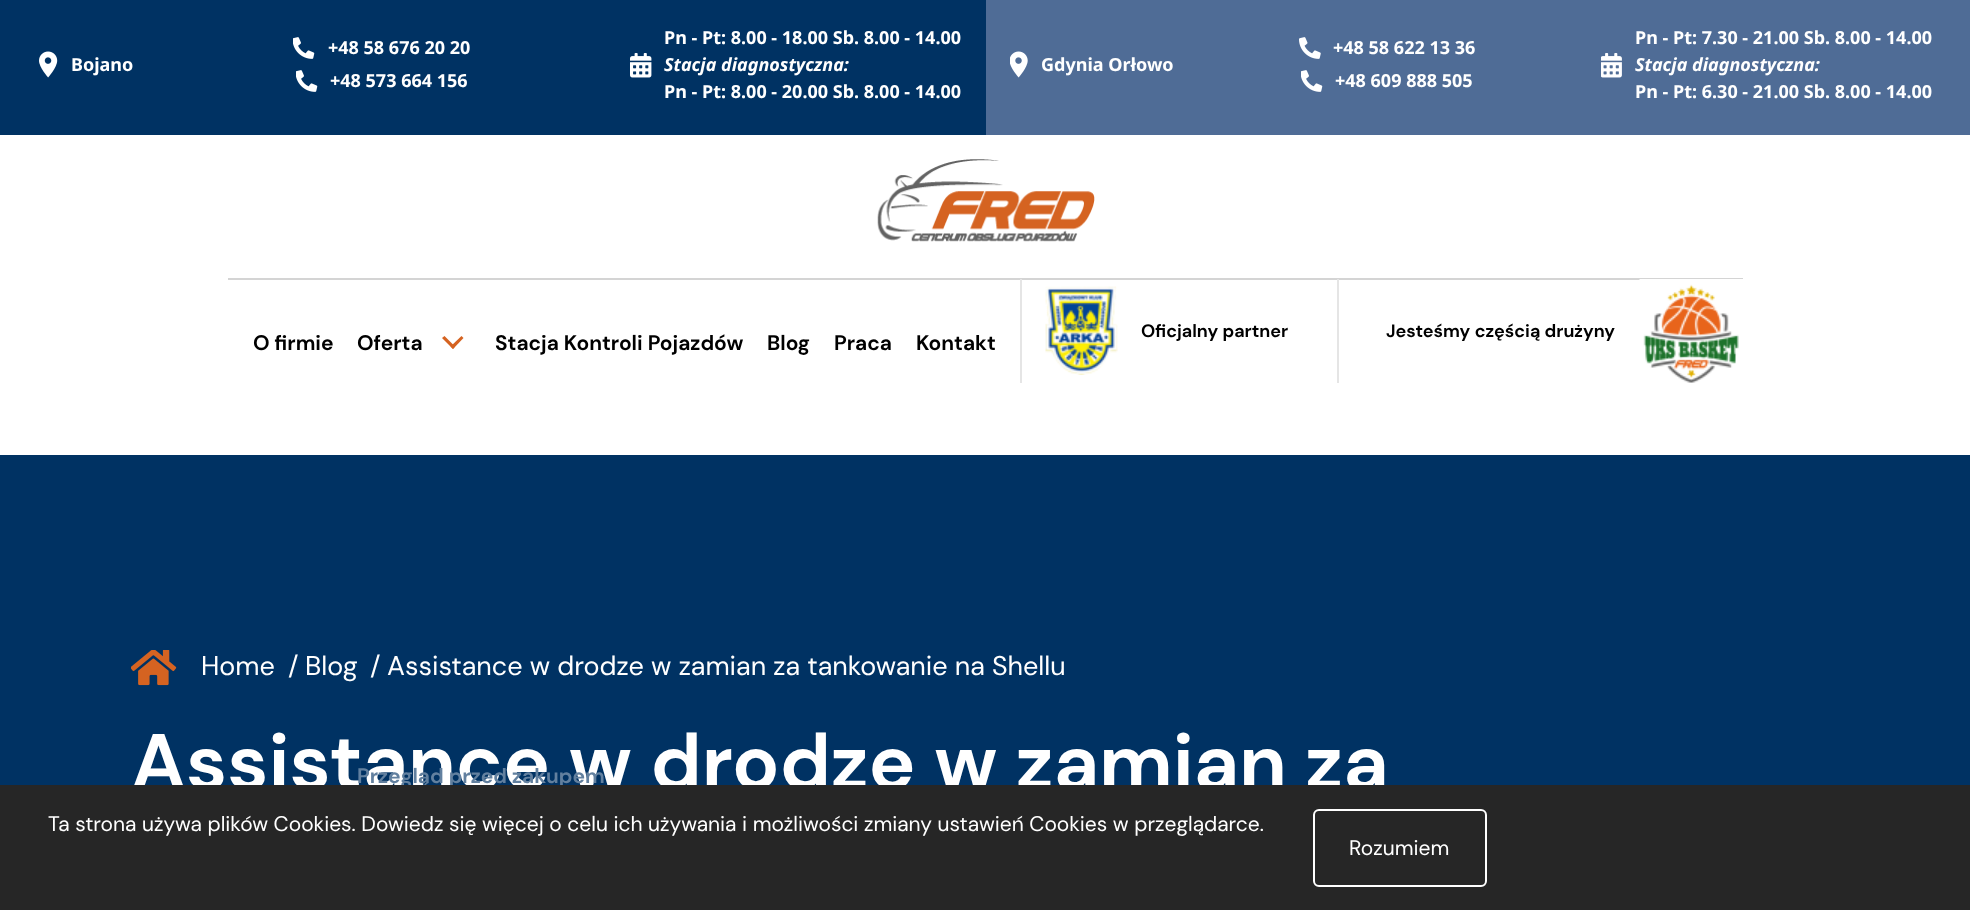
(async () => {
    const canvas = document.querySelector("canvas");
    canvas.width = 1970;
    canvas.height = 910;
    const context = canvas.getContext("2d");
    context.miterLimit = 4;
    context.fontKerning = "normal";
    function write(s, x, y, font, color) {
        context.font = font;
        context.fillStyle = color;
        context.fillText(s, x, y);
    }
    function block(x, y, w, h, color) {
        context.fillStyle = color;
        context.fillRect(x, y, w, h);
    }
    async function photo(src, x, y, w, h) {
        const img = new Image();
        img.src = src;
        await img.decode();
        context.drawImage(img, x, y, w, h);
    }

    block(0, 0, 1970, 910, "rgb(255, 255, 255)");
    block(0, 0, 986, 135, "rgb(0, 50, 99)");
    block(986, 0, 984, 135, "rgb(79, 108, 150)");
    await photo("media/1.png", 39, 51, 19, 27);
    write("Bojano", 71, 71, "bold 18px Noto Sans", "rgb(255, 255, 255)");
    await photo("media/2.png", 293, 37, 22, 22);
    write("+48 58 676 20 20", 328, 54, "bold 18px Noto Sans", "rgb(255, 255, 255)");
    await photo("media/2.png", 296, 70, 22, 22);
    write("+48 573 664 156", 330, 87, "bold 18px Noto Sans", "rgb(255, 255, 255)");
    await photo("media/3.png", 630, 53, 22, 25);
    write("Pn - Pt: 8.00 - 18.00 Sb. 8.00 - 14.00", 664, 44, "bold 18px Noto Sans", "rgb(255, 255, 255)");
    write("Stacja diagnostyczna:", 664, 71, "italic bold 18px Noto Sans", "rgb(255, 255, 255)");
    write("Pn - Pt: 8.00 - 20.00 Sb. 8.00 - 14.00", 664, 98, "bold 18px Noto Sans", "rgb(255, 255, 255)");
    await photo("media/4.png", 1010, 51, 18, 27);
    write("Gdynia Orłowo", 1041, 71, "bold 18px Noto Sans", "rgb(255, 255, 255)");
    await photo("media/5.png", 1299, 37, 22, 22);
    write("+48 58 622 13 36", 1333, 54, "bold 18px Noto Sans", "rgb(255, 255, 255)");
    await photo("media/6.png", 1301, 70, 22, 22);
    write("+48 609 888 505", 1335, 87, "bold 18px Noto Sans", "rgb(255, 255, 255)");
    await photo("media/7.png", 1601, 53, 21, 25);
    write("Pn - Pt: 7.30 - 21.00 Sb. 8.00 - 14.00", 1635, 44, "bold 18px Noto Sans", "rgb(255, 255, 255)");
    write("Stacja diagnostyczna:", 1635, 71, "italic bold 18px Noto Sans", "rgb(255, 255, 255)");
    write("Pn - Pt: 6.30 - 21.00 Sb. 8.00 - 14.00", 1635, 98, "bold 18px Noto Sans", "rgb(255, 255, 255)");
    await photo("media/8.png", 877, 159, 218, 83);
    block(228, 278, 1515, 2, "rgb(212, 212, 212)");
    block(1020, 279, 2, 104, "rgb(229, 229, 229)");
    await photo("media/9.png", 1045, 286, 73, 89);
    write("Oficjalny partner", 1141, 337, "bold 18px DM Sans", "rgb(0, 0, 0)");
    block(1337, 279, 2, 104, "rgb(229, 229, 229)");
    write("Jesteśmy częścią drużyny", 1386, 337, "bold 18px DM Sans", "rgb(0, 0, 0)");
    await photo("media/10.png", 1639, 279, 104, 104);
    write("O firmie", 253, 350, "bold 21px DM Sans", "rgb(0, 0, 0)");
    write("Oferta", 357, 350, "bold 21px DM Sans", "rgb(0, 0, 0)");
    context.fillStyle = "rgb(213, 99, 33)";
    context.beginPath();
    context.moveTo(461.5, 336);
    context.lineTo(463.5, 338);
    context.lineTo(453, 349);
    context.lineTo(450.5, 346.5);
    context.closePath();
    context.fill();
    context.beginPath();
    context.moveTo(444.5, 336);
    context.lineTo(455, 346.5);
    context.lineTo(453, 349);
    context.lineTo(442, 338);
    context.closePath();
    context.fill();
    block(0, 455, 1970, 330, "rgb(0, 50, 99)");
    write("Assistance w drodze w zamian za", 131, 789, "bold 78.6px DM Sans", "rgb(255, 255, 255)");
    write("Przegląd przed zakupem", 357, 783, "bold 21px DM Sans", "rgb(98, 128, 159)");
    write("Stacja Kontroli Pojazdów", 495, 350, "bold 21px DM Sans", "rgb(0, 0, 0)");
    write("Blog", 767, 350, "bold 21px DM Sans", "rgb(0, 0, 0)");
    write("Praca", 834, 350, "bold 21px DM Sans", "rgb(0, 0, 0)");
    write("Kontakt", 916, 350, "bold 21px DM Sans", "rgb(0, 0, 0)");
    await photo("media/11.png", 131, 650, 46, 36);
    write("Home", 201, 675, "27px DM Sans", "rgb(255, 255, 255)");
    write("/", 288, 675, "27px DM Sans", "rgb(255, 255, 255)");
    write("Blog", 305, 675, "27px DM Sans", "rgb(255, 255, 255)");
    write("/", 370, 675, "27px DM Sans", "rgb(255, 255, 255)");
    write("Assistance w drodze w zamian za tankowanie na Shellu", 387, 675, "27px DM Sans", "rgb(255, 255, 255)");
    block(0, 785, 1970, 125, "rgb(38, 38, 38)");
    write("Ta strona używa plików Cookies. Dowiedz się więcej o celu ich używania i możliwości zmiany ustawień Cookies w przeglądarce.", 48, 831, "21px DM Sans", "rgb(255, 255, 255)");
    context.beginPath();
    context.roundRect(1314, 810, 172, 76, 5);
    context.strokeStyle = "rgb(255, 255, 255)";
    context.lineWidth = 2;
    context.stroke();
    write("Rozumiem", 1349, 855, "21px DM Sans", "rgb(255, 255, 255)");
})();
